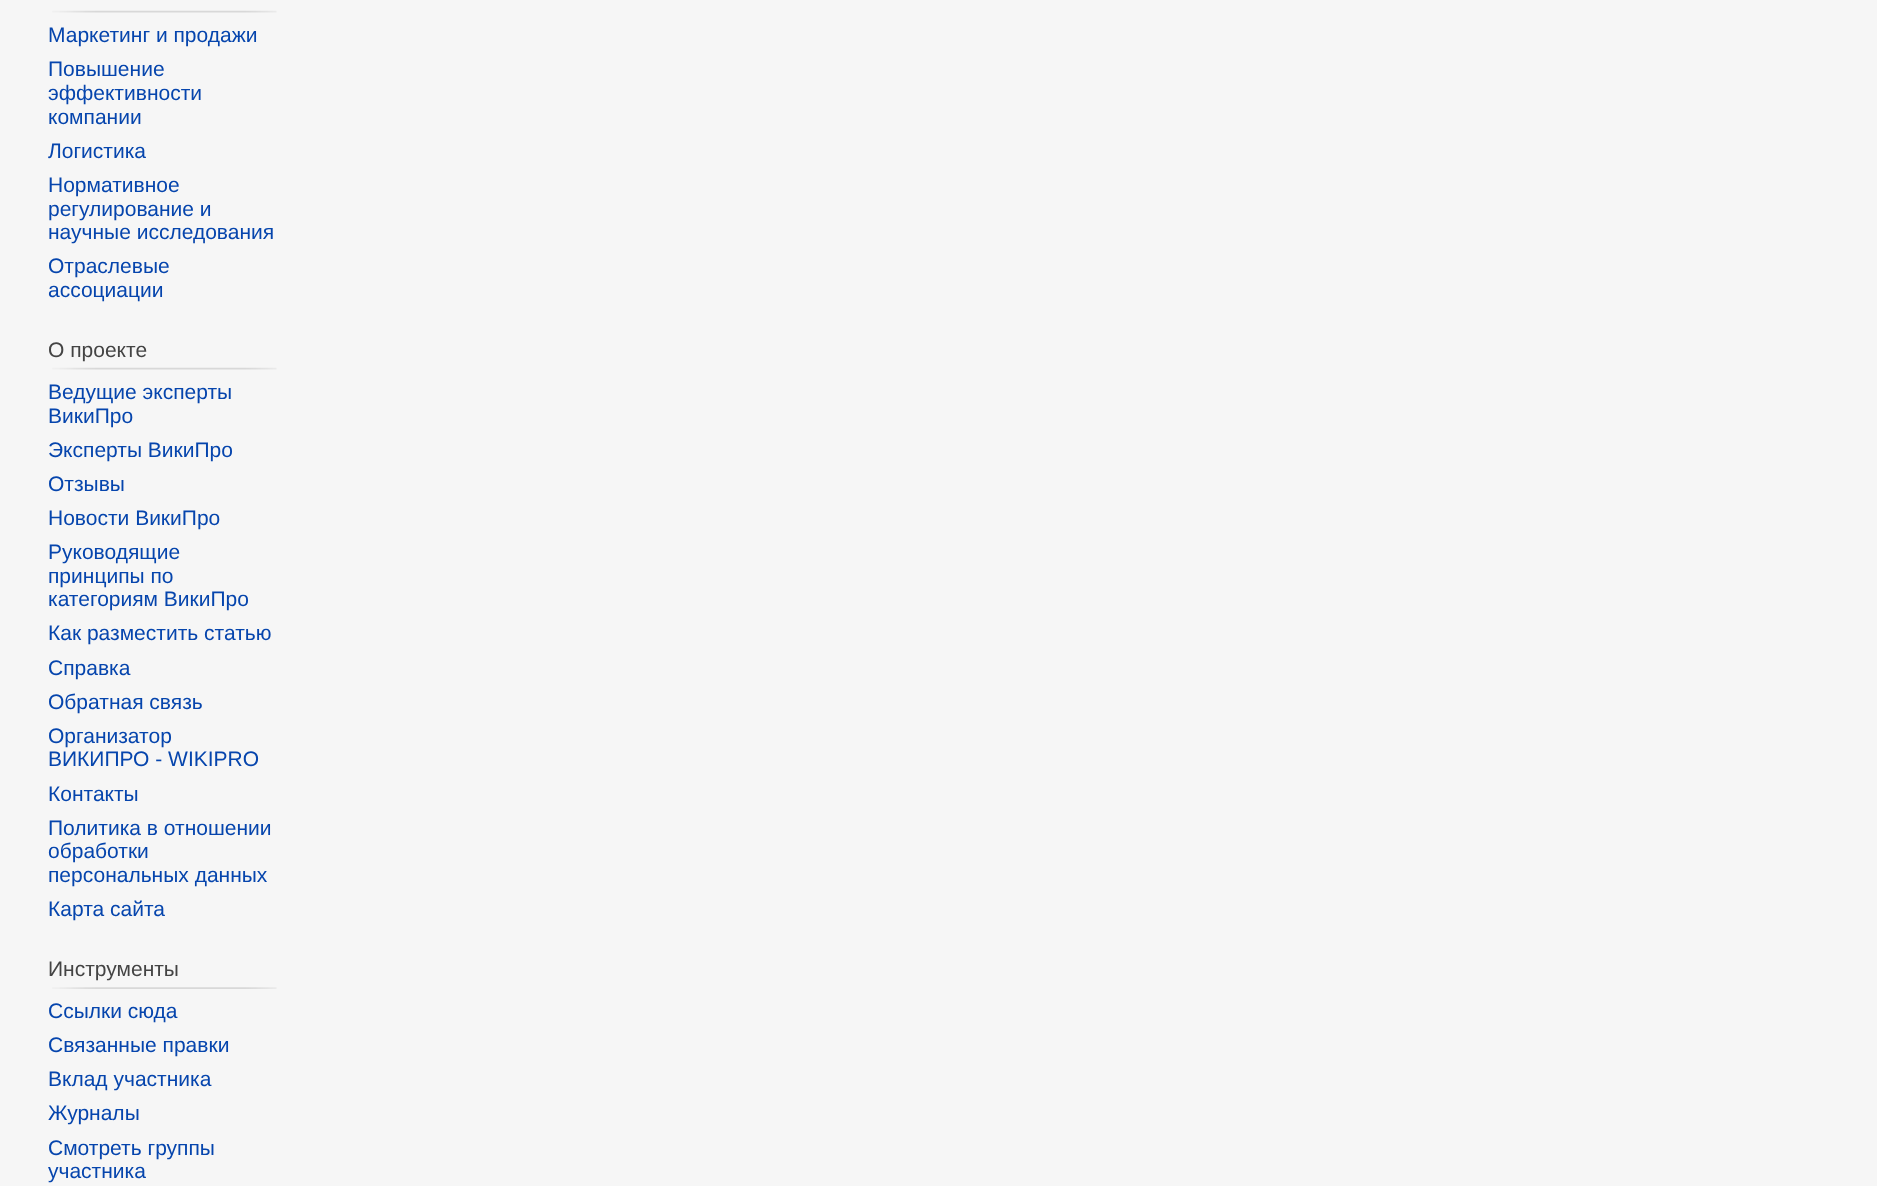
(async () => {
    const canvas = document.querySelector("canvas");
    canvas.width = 1877;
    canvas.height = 1186;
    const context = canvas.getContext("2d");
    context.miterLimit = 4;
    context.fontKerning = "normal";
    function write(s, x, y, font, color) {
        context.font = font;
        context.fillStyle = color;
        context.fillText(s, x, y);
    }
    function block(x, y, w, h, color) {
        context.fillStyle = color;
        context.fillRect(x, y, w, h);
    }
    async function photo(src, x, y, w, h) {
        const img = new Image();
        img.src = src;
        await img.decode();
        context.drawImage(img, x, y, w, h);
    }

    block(0, 0, 1877, 1186, "rgb(246, 246, 246)");
    await photo("media/1.png", 52, 10, 225, 3);
    write("Маркетинг и продажи", 48, 42, "21px Liberation Sans", "rgb(6, 69, 173)");
    write("Повышение", 48, 76, "21px Liberation Sans", "rgb(6, 69, 173)");
    write("эффективности", 48, 100, "21px Liberation Sans", "rgb(6, 69, 173)");
    write("компании", 48, 124, "21px Liberation Sans", "rgb(6, 69, 173)");
    write("Логистика", 48, 158, "21px Liberation Sans", "rgb(6, 69, 173)");
    write("Нормативное", 48, 192, "21px Liberation Sans", "rgb(6, 69, 173)");
    write("регулирование и", 48, 216, "21px Liberation Sans", "rgb(6, 69, 173)");
    write("научные исследования", 48, 239, "21px Liberation Sans", "rgb(6, 69, 173)");
    write("Отраслевые", 48, 273, "21px Liberation Sans", "rgb(6, 69, 173)");
    write("ассоциации", 48, 297, "21px Liberation Sans", "rgb(6, 69, 173)");
    write("О проекте", 48, 357, "21px Liberation Sans", "rgb(68, 68, 68)");
    await photo("media/1.png", 52, 367, 225, 3);
    write("Ведущие эксперты", 48, 399, "21px Liberation Sans", "rgb(6, 69, 173)");
    write("ВикиПро", 48, 423, "21px Liberation Sans", "rgb(6, 69, 173)");
    write("Эксперты ВикиПро", 48, 457, "21px Liberation Sans", "rgb(6, 69, 173)");
    write("Отзывы", 48, 491, "21px Liberation Sans", "rgb(6, 69, 173)");
    write("Новости ВикиПро", 48, 525, "21px Liberation Sans", "rgb(6, 69, 173)");
    write("Руководящие", 48, 559, "21px Liberation Sans", "rgb(6, 69, 173)");
    write("принципы по", 48, 583, "21px Liberation Sans", "rgb(6, 69, 173)");
    write("категориям ВикиПро", 48, 606, "21px Liberation Sans", "rgb(6, 69, 173)");
    write("Как разместить статью", 48, 640, "21px Liberation Sans", "rgb(6, 69, 173)");
    write("Справка", 48, 675, "21px Liberation Sans", "rgb(6, 69, 173)");
    write("Обратная связь", 48, 709, "21px Liberation Sans", "rgb(6, 69, 173)");
    write("Организатор", 48, 743, "21px Liberation Sans", "rgb(6, 69, 173)");
    write("ВИКИПРО - WIKIPRO", 48, 766, "21px Liberation Sans", "rgb(6, 69, 173)");
    write("Контакты", 48, 801, "21px Liberation Sans", "rgb(6, 69, 173)");
    write("Политика в отношении", 48, 835, "21px Liberation Sans", "rgb(6, 69, 173)");
    write("обработки", 48, 858, "21px Liberation Sans", "rgb(6, 69, 173)");
    write("персональных данных", 48, 882, "21px Liberation Sans", "rgb(6, 69, 173)");
    write("Карта сайта", 48, 916, "21px Liberation Sans", "rgb(6, 69, 173)");
    write("Инструменты", 48, 976, "21px Liberation Sans", "rgb(68, 68, 68)");
    await photo("media/2.png", 52, 987, 225, 2);
    write("Ссылки сюда", 48, 1018, "21px Liberation Sans", "rgb(6, 69, 173)");
    write("Связанные правки", 48, 1052, "21px Liberation Sans", "rgb(6, 69, 173)");
    write("Вклад участника", 48, 1086, "21px Liberation Sans", "rgb(6, 69, 173)");
    write("Журналы", 48, 1120, "21px Liberation Sans", "rgb(6, 69, 173)");
    write("Смотреть группы", 48, 1155, "21px Liberation Sans", "rgb(6, 69, 173)");
    write("участника", 48, 1178, "21px Liberation Sans", "rgb(6, 69, 173)");
})();
